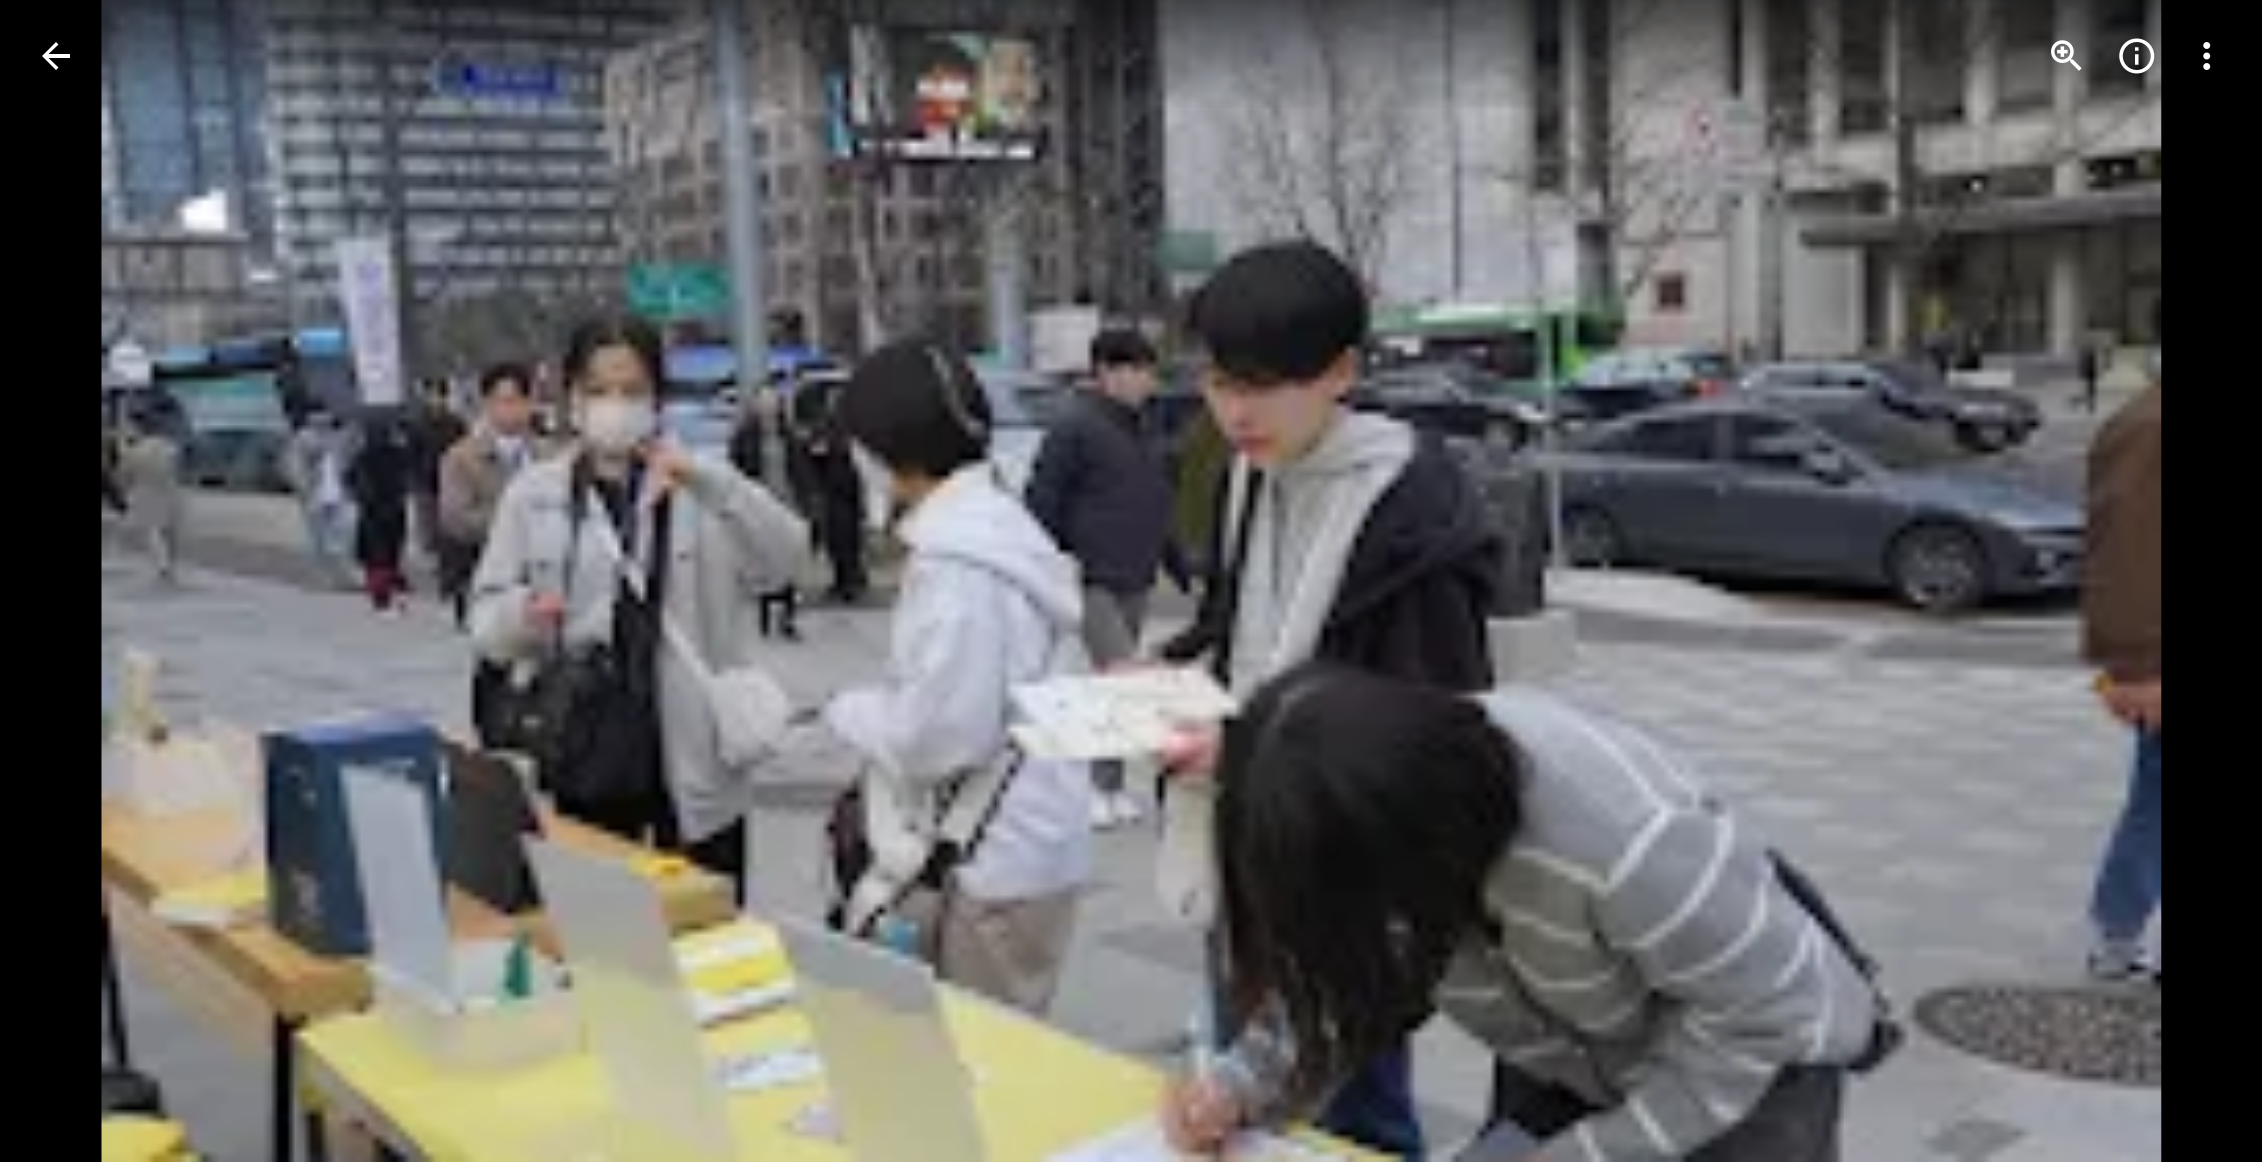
(async () => {
    const canvas = document.querySelector("canvas");
    canvas.width = 2262;
    canvas.height = 1162;
    const context = canvas.getContext("2d");
    context.miterLimit = 4;
    context.fontKerning = "normal";
    function block(x, y, w, h, color) {
        context.fillStyle = color;
        context.fillRect(x, y, w, h);
    }
    async function photo(src, x, y, w, h) {
        const img = new Image();
        img.src = src;
        await img.decode();
        context.drawImage(img, x, y, w, h);
    }
    let gradient;

    block(0, 0, 2262, 1162, "rgb(0, 0, 0)");
    await photo("media/4.png", 101, 0, 2061, 1162);
    gradient = context.createLinearGradient(1131, 0, 1131, 112);
    gradient.addColorStop(0, "rgba(0, 0, 0, 0.6)");
    gradient.addColorStop(1, "rgba(0, 0, 0, 0)");
    context.fillStyle = gradient;
    context.fillRect(101, 0, 2061, 108);
    context.fillStyle = "rgb(255, 255, 255)";
    context.beginPath();
    context.moveTo(70, 54);
    context.lineTo(48.5, 54);
    context.lineTo(58.5, 44.5);
    context.lineTo(56, 42);
    context.lineTo(42, 56);
    context.lineTo(56, 70);
    context.lineTo(58.5, 67.5);
    context.lineTo(48.5, 58);
    context.lineTo(70, 58);
    context.closePath();
    context.fill();
    await photo("media/1.png", 2051, 40, 31, 31);
    await photo("media/2.png", 2119, 38, 36, 36);
    await photo("media/3.png", 2203, 42, 8, 28);
})();
